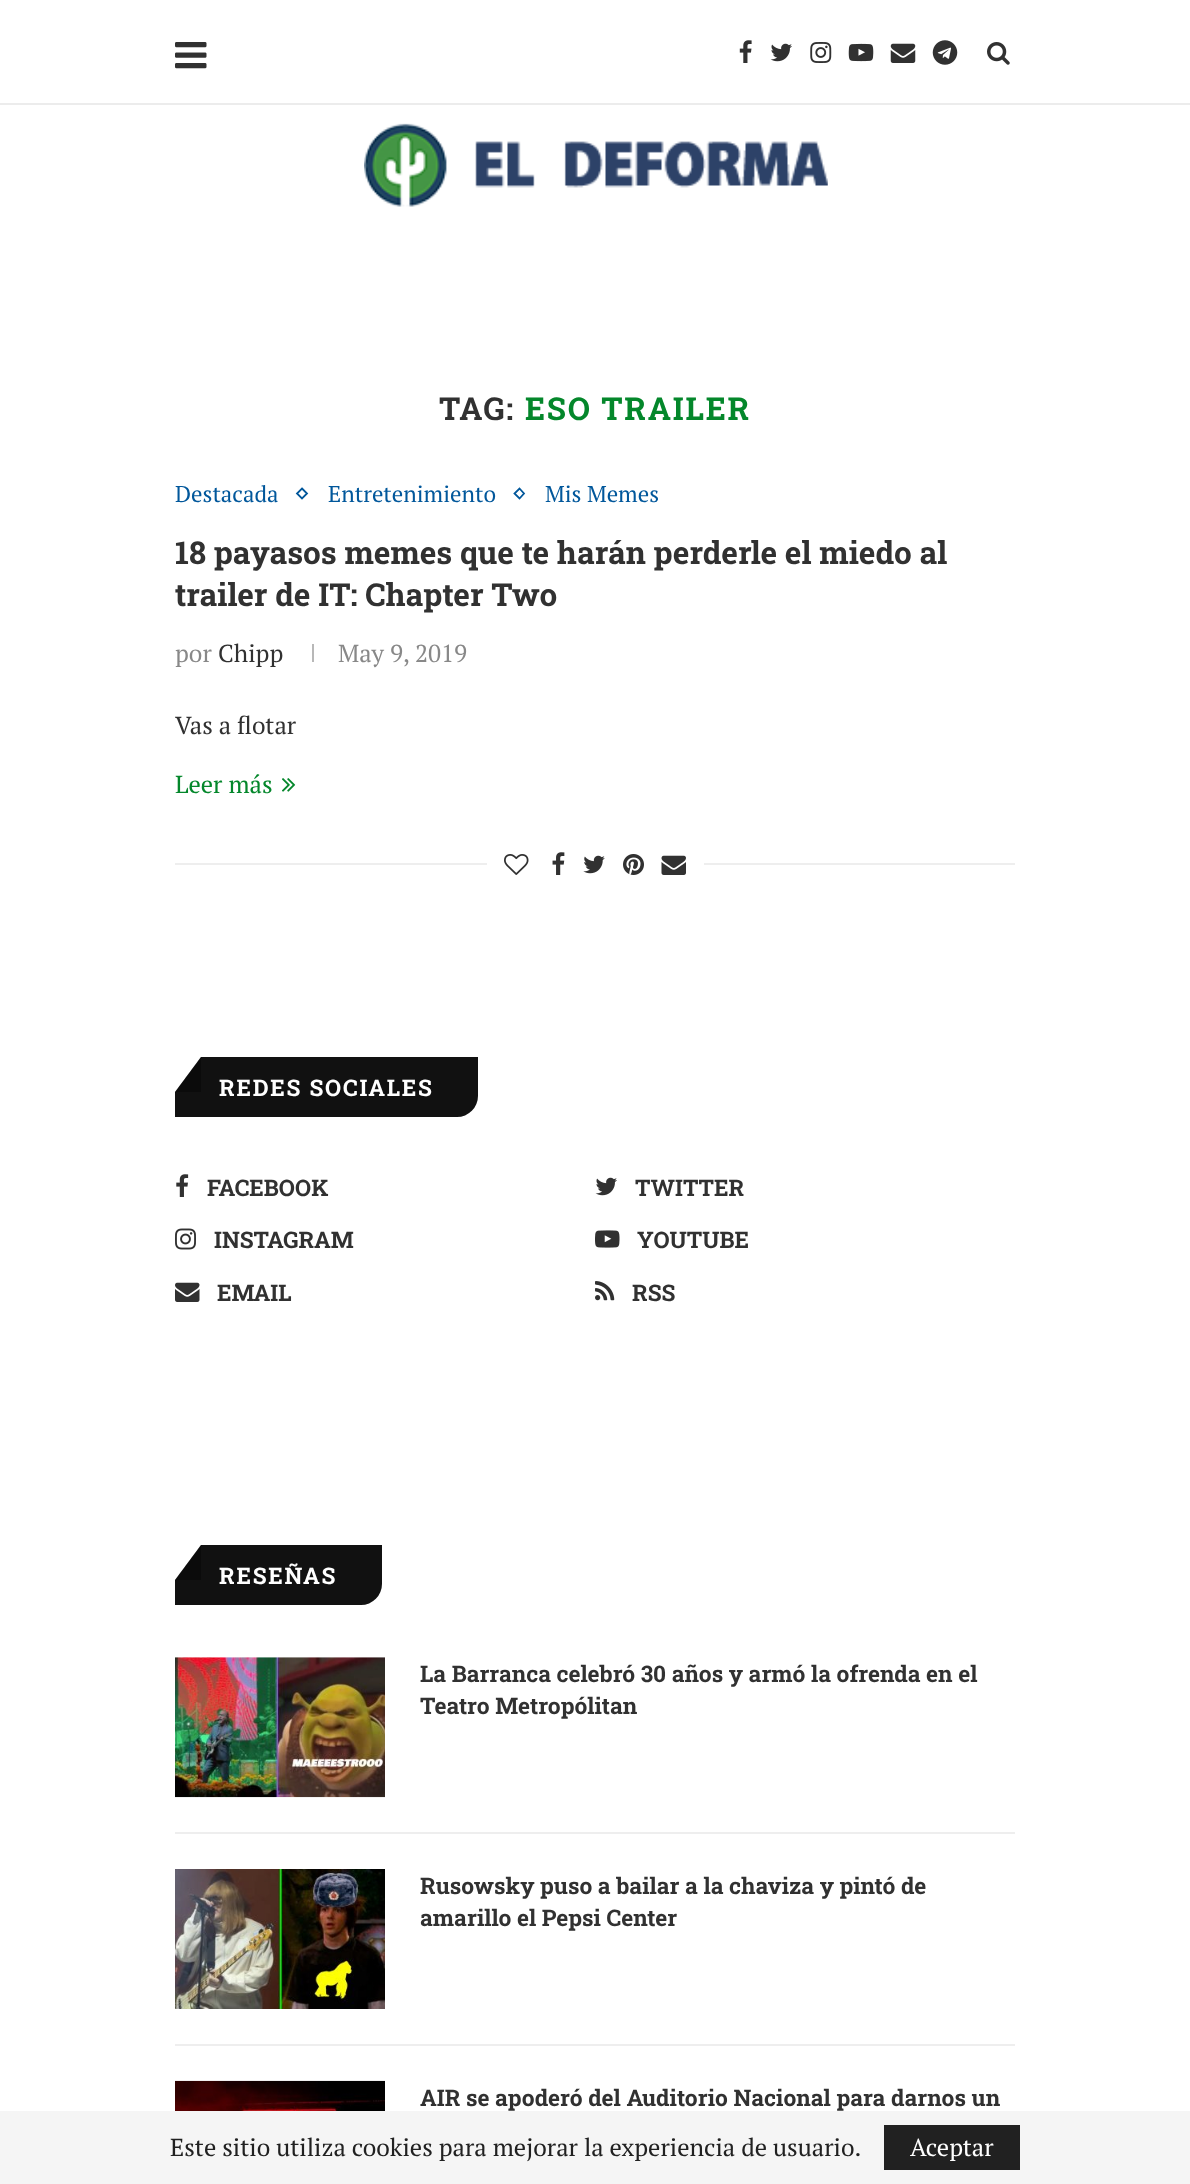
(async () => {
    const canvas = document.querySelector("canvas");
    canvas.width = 1190;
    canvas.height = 2184;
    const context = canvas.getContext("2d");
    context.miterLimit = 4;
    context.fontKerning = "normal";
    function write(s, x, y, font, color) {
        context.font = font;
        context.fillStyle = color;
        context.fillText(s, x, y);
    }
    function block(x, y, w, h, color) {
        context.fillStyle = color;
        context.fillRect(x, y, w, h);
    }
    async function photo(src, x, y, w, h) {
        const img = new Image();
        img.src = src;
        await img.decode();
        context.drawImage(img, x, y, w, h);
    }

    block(0, 0, 1190, 2184, "rgb(255, 255, 255)");
    block(0, 103, 1190, 2, "rgb(236, 236, 236)");
    await photo("media/1.png", 175, 42, 32, 27);
    await photo("media/2.png", 739, 40, 13, 23);
    await photo("media/3.png", 770, 43, 22, 19);
    await photo("media/4.png", 810, 42, 22, 21);
    await photo("media/5.png", 848, 43, 26, 19);
    await photo("media/6.png", 890, 43, 26, 20);
    await photo("media/7.png", 932, 40, 26, 25);
    await photo("media/8.png", 987, 42, 23, 23);
    await photo("media/9.png", 364, 123, 464, 84);
    context.letterSpacing = "1.75px";
    write("TAG:", 439, 420, "bold 31.5px Roboto Slab", "rgb(49, 49, 49)");
    write("ESO TRAILER", 525, 420, "bold 31.5px Roboto Slab", "rgb(4, 135, 43)");
    context.letterSpacing = "0px";
    write("Destacada", 175, 502, "22.75px PT Serif", "rgb(1, 87, 155)");
    context.beginPath();
    context.moveTo(302, 488.5);
    context.lineTo(307, 493.5);
    context.lineTo(302, 498.5);
    context.lineTo(297, 493.5);
    context.closePath();
    context.strokeStyle = "rgb(1, 87, 155)";
    context.lineWidth = 1.8;
    context.stroke();
    write("Entretenimiento", 328, 502, "22.75px PT Serif", "rgb(1, 87, 155)");
    context.beginPath();
    context.moveTo(519.5, 488.5);
    context.lineTo(524, 493.5);
    context.lineTo(519.5, 498.5);
    context.lineTo(514.5, 493.5);
    context.closePath();
    context.stroke();
    write("Mis Memes", 545, 502, "22.75px PT Serif", "rgb(1, 87, 155)");
    write("18 payasos memes que te harán perderle el miedo al", 175, 564, "bold 31.5px Roboto Slab", "rgb(49, 49, 49)");
    write("trailer de IT: Chapter Two", 175, 606, "bold 31.5px Roboto Slab", "rgb(49, 49, 49)");
    write("por", 175, 662, "24.5px PT Serif", "rgb(136, 136, 136)");
    write("Chipp", 218, 662, "24.5px PT Serif", "rgb(49, 49, 49)");
    block(312, 644, 2, 18, "rgb(184, 184, 184)");
    write("May 9, 2019", 338, 662, "24.5px PT Serif", "rgb(136, 136, 136)");
    write("Vas a flotar", 175, 734, "24.5px PT Serif", "rgb(49, 49, 49)");
    write("Leer más", 175, 793, "24.5px PT Serif", "rgb(4, 135, 43)");
    await photo("media/10.png", 282, 778, 14, 14);
    block(175, 863, 840, 2, "rgb(238, 238, 238)");
    block(487, 863, 217, 2, "rgb(255, 255, 255)");
    await photo("media/11.png", 504, 854, 25, 21);
    await photo("media/12.png", 552, 852, 13, 23);
    await photo("media/13.png", 583, 855, 22, 19);
    await photo("media/14.png", 623, 854, 21, 21);
    await photo("media/15.png", 661, 855, 25, 20);
    context.fillStyle = "rgb(17, 17, 17)";
    context.beginPath();
    context.roundRect(175, 1057, 303, 60, [0, 0, 21, 0]);
    context.fill();
    context.fillStyle = "rgb(255, 255, 255)";
    context.beginPath();
    context.moveTo(175, 1057);
    context.lineTo(201, 1057);
    context.lineTo(175, 1092);
    context.closePath();
    context.fill();
    context.fillStyle = "rgba(0, 0, 0, 0.3)";
    context.beginPath();
    context.moveTo(201, 1092);
    context.lineTo(175, 1092);
    context.lineTo(201, 1057);
    context.closePath();
    context.fill();
    context.letterSpacing = "1.75px";
    write("REDES SOCIALES", 219, 1096, "bold 22.75px Roboto Slab", "rgb(255, 255, 255)");
    await photo("media/16.png", 176, 1174, 13, 23);
    context.letterSpacing = "0px";
    write("FACEBOOK", 207, 1196, "bold 22.75px Roboto Slab", "rgb(49, 49, 49)");
    await photo("media/3.png", 595, 1177, 22, 19);
    write("TWITTER", 635, 1196, "bold 22.75px Roboto Slab", "rgb(49, 49, 49)");
    await photo("media/17.png", 175, 1228, 21, 22);
    write("INSTAGRAM", 214, 1248, "bold 22.75px Roboto Slab", "rgb(49, 49, 49)");
    await photo("media/18.png", 595, 1230, 25, 18);
    write("YOUTUBE", 637, 1248, "bold 22.75px Roboto Slab", "rgb(49, 49, 49)");
    await photo("media/19.png", 175, 1282, 25, 20);
    write("EMAIL", 217, 1301, "bold 22.75px Roboto Slab", "rgb(49, 49, 49)");
    await photo("media/20.png", 595, 1281, 20, 20);
    write("RSS", 632, 1301, "bold 22.75px Roboto Slab", "rgb(49, 49, 49)");
    context.fillStyle = "rgb(17, 17, 17)";
    context.beginPath();
    context.roundRect(175, 1545, 207, 60, [0, 0, 21, 0]);
    context.fill();
    context.fillStyle = "rgb(255, 255, 255)";
    context.beginPath();
    context.moveTo(175, 1545);
    context.lineTo(201, 1545);
    context.lineTo(175, 1580);
    context.closePath();
    context.fill();
    context.fillStyle = "rgba(0, 0, 0, 0.3)";
    context.beginPath();
    context.moveTo(201, 1580);
    context.lineTo(175, 1580);
    context.lineTo(201, 1545);
    context.closePath();
    context.fill();
    context.letterSpacing = "1.75px";
    write("RESEÑAS", 219, 1584, "bold 22.75px Roboto Slab", "rgb(255, 255, 255)");
    block(175, 1832, 840, 2, "rgb(238, 238, 238)");
    block(175, 1657, 210, 1, "rgb(245, 245, 245)");
    await photo("media/21.png", 175, 1657, 210, 141);
    context.letterSpacing = "0px";
    write("La Barranca celebró 30 años y armó la ofrenda en el", 420, 1682, "bold 22.75px Roboto Slab", "rgb(49, 49, 49)");
    write("Teatro Metropólitan", 420, 1714, "bold 22.75px Roboto Slab", "rgb(49, 49, 49)");
    block(175, 2044, 840, 2, "rgb(238, 238, 238)");
    await photo("media/22.png", 175, 1869, 210, 140);
    write("Rusowsky puso a bailar a la chaviza y pintó de", 420, 1894, "bold 22.75px Roboto Slab", "rgb(49, 49, 49)");
    write("amarillo el Pepsi Center", 420, 1926, "bold 22.75px Roboto Slab", "rgb(49, 49, 49)");
    await photo("media/23.png", 175, 2080, 210, 31);
    write("AIR se apoderó del Auditorio Nacional para darnos un", 420, 2106, "bold 22.75px Roboto Slab", "rgb(49, 49, 49)");
    block(0, 2111, 1190, 73, "rgb(245, 245, 245)");
    write("Este sitio utiliza cookies para mejorar la experiencia de usuario.", 170, 2156, "24.5px PT Serif", "rgb(33, 33, 33)");
    block(884, 2125, 136, 45, "rgb(33, 33, 33)");
    write("Aceptar", 910, 2156, "24.5px PT Serif", "rgb(255, 255, 255)");
})();
